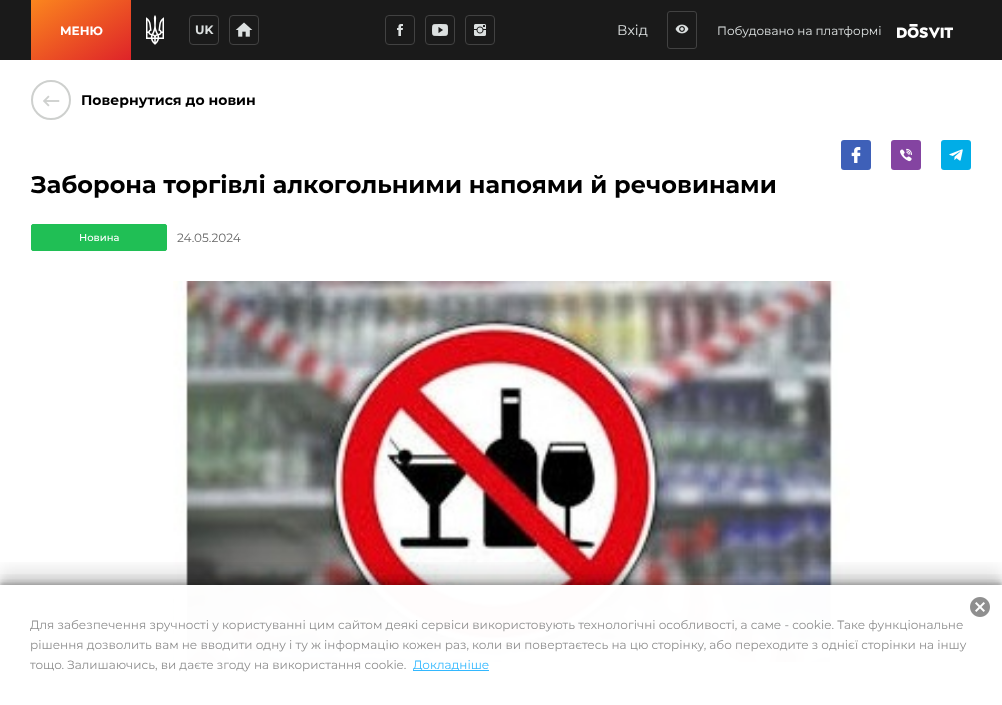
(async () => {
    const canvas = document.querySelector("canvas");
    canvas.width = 1002;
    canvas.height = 705;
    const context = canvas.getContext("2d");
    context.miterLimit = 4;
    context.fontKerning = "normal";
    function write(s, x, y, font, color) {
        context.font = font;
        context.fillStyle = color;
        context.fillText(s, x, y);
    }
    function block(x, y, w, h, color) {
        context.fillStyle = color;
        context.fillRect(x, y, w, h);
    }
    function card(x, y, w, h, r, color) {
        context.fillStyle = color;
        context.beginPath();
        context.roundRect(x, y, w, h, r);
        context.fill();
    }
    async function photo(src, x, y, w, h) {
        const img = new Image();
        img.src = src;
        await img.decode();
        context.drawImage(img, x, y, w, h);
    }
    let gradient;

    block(0, 0, 1002, 705, "rgb(255, 255, 255)");
    block(0, 0, 1002, 60, "rgb(26, 26, 26)");
    gradient = context.createLinearGradient(52, -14, 110, 74);
    gradient.addColorStop(0, "rgb(251, 134, 30)");
    gradient.addColorStop(1, "rgb(222, 35, 41)");
    context.fillStyle = gradient;
    context.fillRect(31, 0, 100, 60);
    write("МЕНЮ", 60, 35, "bold 12px Montserrat", "rgb(255, 255, 255)");
    await photo("media/1.png", 146, 15, 18, 30);
    context.beginPath();
    context.roundRect(189.5, 15.5, 29, 29, 3.5);
    context.strokeStyle = "rgb(66, 66, 66)";
    context.stroke();
    write("UK", 195, 34, "bold 12px Montserrat", "rgb(220, 224, 224)");
    context.beginPath();
    context.roundRect(229.5, 15.5, 29, 29, 3.5);
    context.stroke();
    await photo("media/2.png", 235, 22, 18, 15);
    context.beginPath();
    context.roundRect(385.5, 15.5, 29, 29, 3.5);
    context.stroke();
    await photo("media/3.png", 397, 24, 6, 12);
    context.beginPath();
    context.roundRect(425.5, 15.5, 29, 29, 3.5);
    context.stroke();
    await photo("media/4.png", 432, 24, 16, 12);
    context.beginPath();
    context.roundRect(465.5, 15.5, 29, 29, 3.5);
    context.stroke();
    await photo("media/5.png", 474, 24, 12, 12);
    write("Вхід", 617, 35, "14px Montserrat", "rgb(220, 224, 224)");
    context.beginPath();
    context.roundRect(667.5, 11.5, 29, 37, 2.5);
    context.stroke();
    await photo("media/6.png", 675, 24, 14, 10);
    write("Побудовано на платформі", 717, 35, "12px Montserrat", "rgb(220, 224, 224)");
    await photo("media/7.png", 897, 24, 56, 15);
    context.beginPath();
    context.arc(51, 100, 19, 0, Math.PI * 2);
    context.strokeStyle = "rgb(206, 208, 206)";
    context.lineWidth = 2;
    context.stroke();
    await photo("media/8.png", 43, 95, 17, 12);
    write("Повернутися до новин", 81, 105, "bold 14px Montserrat", "rgb(0, 0, 0)");
    card(841, 140, 30, 30, 3, "rgb(62, 96, 184)");
    await photo("media/9.png", 851, 147, 10, 16);
    card(891, 140, 30, 30, 3, "rgb(132, 68, 161)");
    await photo("media/10.png", 900, 148, 12, 14);
    card(941, 140, 30, 30, 3, "rgb(0, 173, 231)");
    await photo("media/11.png", 949, 149, 14, 12);
    write("Заборона торгівлі алкогольними напоями й речовинами", 31, 193, "bold 24px Montserrat", "rgb(0, 0, 0)");
    context.fillStyle = "rgb(32, 191, 85)";
    context.beginPath();
    context.roundRect(31.5, 224.5, 135, 26, 1.5);
    context.fill();
    context.strokeStyle = "rgb(32, 191, 85)";
    context.lineWidth = 1;
    context.stroke();
    write("Новина", 79, 241, "500 10px Montserrat", "rgb(255, 255, 255)");
    write("24.05.2024", 177, 242, "12px Montserrat", "rgb(102, 102, 102)");
    await photo("media/12.png", 173, 281, 677, 381);
    context.save();
    context.beginPath();
    context.rect(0, 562, 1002, 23);
    context.clip();
    context.fillStyle = "rgba(0, 0, 0, 0.1)";
    context.filter = "blur(8px)";
    context.beginPath();
    context.rect(0, 569, 1002, 120);
    context.fill();
    context.filter = "none";
    context.restore();
    context.save();
    context.beginPath();
    context.rect(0, 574, 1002, 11);
    context.clip();
    context.fillStyle = "rgba(0, 0, 0, 0.1)";
    context.filter = "blur(4px)";
    context.beginPath();
    context.rect(0, 577, 1002, 120);
    context.fill();
    context.filter = "none";
    context.restore();
    context.save();
    context.beginPath();
    context.rect(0, 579, 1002, 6);
    context.clip();
    context.fillStyle = "rgba(0, 0, 0, 0.1)";
    context.filter = "blur(2px)";
    context.beginPath();
    context.rect(0, 581, 1002, 120);
    context.fill();
    context.filter = "none";
    context.restore();
    context.save();
    context.beginPath();
    context.rect(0, 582, 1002, 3);
    context.clip();
    context.fillStyle = "rgba(0, 0, 0, 0.1)";
    context.filter = "blur(1px)";
    context.beginPath();
    context.rect(0, 583, 1002, 120);
    context.fill();
    context.filter = "none";
    context.restore();
    block(174, 585, 676, 77, "rgba(255, 255, 255, 0.99)");
    await photo("media/13.png", 970, 597, 20, 20);
    write("Для забезпечення зручності у користуванні цим сайтом деякі сервіси використовують технологічні особливості, а саме - cookie. Таке функціональне", 30, 629, "12px Montserrat", "rgb(143, 143, 143)");
    write("рішення дозволить вам не вводити одну і ту ж інформацію кожен раз, коли ви повертаєтесь на цю сторінку, або переходите з однієї сторінки на іншу", 30, 649, "12px Montserrat", "rgb(143, 143, 143)");
    write("тощо. Залишаючись, ви даєте згоду на використання cookie.", 30, 669, "12px Montserrat", "rgb(143, 143, 143)");
    block(413, 670, 76, 1, "rgb(51, 184, 255)");
    write("Докладніше", 413, 669, "12px Montserrat", "rgb(51, 184, 255)");
})();
